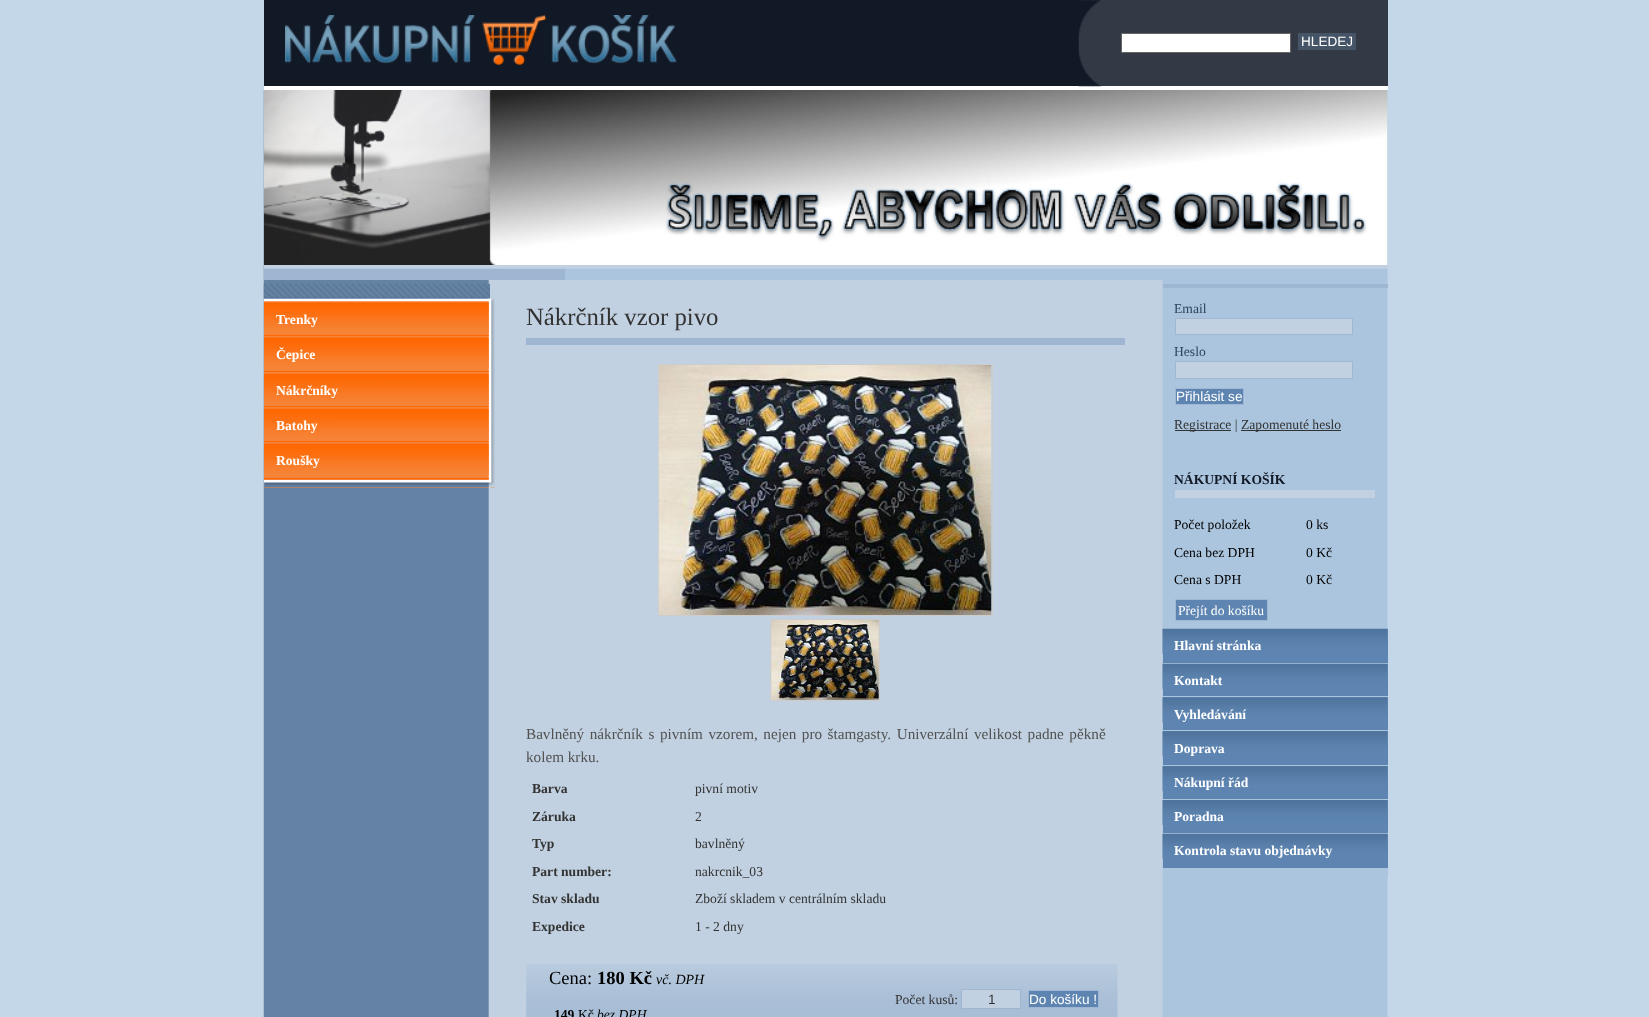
(async () => {
    const canvas = document.querySelector("canvas");
    canvas.width = 1649;
    canvas.height = 1017;
    const context = canvas.getContext("2d");
    context.miterLimit = 4;
    context.fontKerning = "normal";
    function write(s, x, y, font, color) {
        context.font = font;
        context.fillStyle = color;
        context.fillText(s, x, y);
    }
    function block(x, y, w, h, color) {
        context.fillStyle = color;
        context.fillRect(x, y, w, h);
    }
    async function photo(src, x, y, w, h) {
        const img = new Image();
        img.src = src;
        await img.decode();
        context.drawImage(img, x, y, w, h);
    }

    block(0, 0, 1649, 1017, "rgb(196, 215, 233)");
    block(264, 0, 815, 86, "rgb(17, 25, 39)");
    await photo("media/5.png", 263, 90, 1125, 927);
    block(264, 90, 1124, 190, "rgb(193, 209, 225)");
    await photo("media/4.png", 263, 86, 1125, 179);
    block(264, 86, 1124, 4, "rgb(255, 255, 255)");
    await photo("media/1.png", 285, 15, 392, 50);
    block(1101, 0, 287, 86, "rgb(51, 57, 69)");
    await photo("media/2.png", 1078, 0, 24, 87);
    context.fillStyle = "rgb(255, 255, 255)";
    context.beginPath();
    context.rect(1121.5, 33.5, 169, 19);
    context.fill();
    context.strokeStyle = "rgb(102, 102, 102)";
    context.stroke();
    block(1298, 33, 58, 17, "rgb(69, 84, 102)");
    write("HLEDEJ", 1301, 46, "13.6px Liberation Sans", "rgb(255, 255, 255)");
    await photo("media/3.png", 264, 268, 1124, 12);
    await photo("media/6.png", 263, 283, 227, 16);
    block(264, 301, 231, 187, "rgb(246, 131, 55)");
    await photo("media/7.png", 488, 298, 7, 190);
    await photo("media/8.png", 263, 298, 232, 4);
    await photo("media/9.png", 263, 480, 232, 8);
    await photo("media/10.png", 263, 302, 226, 32);
    block(264, 335, 225, 1, "rgb(255, 103, 1)");
    write("Trenky", 276, 324, "bold 13.6px Liberation Serif", "rgb(255, 255, 255)");
    await photo("media/11.png", 263, 337, 226, 32);
    block(264, 371, 225, 1, "rgb(255, 103, 1)");
    write("Čepice", 276, 359, "bold 13.6px Liberation Serif", "rgb(255, 255, 255)");
    await photo("media/12.png", 263, 373, 226, 32);
    block(264, 406, 225, 1, "rgb(255, 103, 1)");
    write("Nákrčníky", 276, 395, "bold 13.6px Liberation Serif", "rgb(255, 255, 255)");
    await photo("media/13.png", 263, 408, 226, 32);
    block(264, 441, 225, 1, "rgb(255, 103, 1)");
    write("Batohy", 276, 430, "bold 13.6px Liberation Serif", "rgb(255, 255, 255)");
    await photo("media/14.png", 263, 443, 226, 32);
    block(264, 478, 225, 1, "rgb(255, 103, 1)");
    write("Roušky", 276, 465, "bold 13.6px Liberation Serif", "rgb(255, 255, 255)");
    block(526, 338, 599, 7, "rgb(158, 182, 210)");
    write("Nákrčník vzor pivo", 526, 325, "24.75px Liberation Serif", "rgb(51, 51, 51)");
    context.strokeStyle = "rgb(204, 204, 204)";
    context.strokeRect(658.5, 364.5, 334, 251);
    await photo("media/15.png", 658, 365, 334, 250);
    context.strokeRect(770.5, 619.5, 109, 81);
    await photo("media/16.png", 771, 620, 108, 80);
    context.wordSpacing = "1.75px";
    write("Bavlněný nákrčník s pivním vzorem, nejen pro štamgasty. Univerzální velikost padne pěkně", 526, 739, "15.2px Liberation Serif", "rgb(81, 81, 81)");
    context.wordSpacing = "0px";
    write("kolem krku.", 526, 762, "15.2px Liberation Serif", "rgb(81, 81, 81)");
    write("Barva", 532, 793, "bold 13.6px Liberation Serif", "rgb(51, 51, 51)");
    write("pivní motiv", 695, 793, "13.6px Liberation Serif", "rgb(51, 51, 51)");
    write("Záruka", 532, 821, "bold 13.6px Liberation Serif", "rgb(51, 51, 51)");
    write("2", 695, 821, "13.6px Liberation Serif", "rgb(51, 51, 51)");
    write("Typ", 532, 848, "bold 13.6px Liberation Serif", "rgb(51, 51, 51)");
    write("bavlněný", 695, 848, "13.6px Liberation Serif", "rgb(51, 51, 51)");
    write("Part number:", 532, 876, "bold 13.6px Liberation Serif", "rgb(51, 51, 51)");
    write("nakrcnik_03", 695, 876, "13.6px Liberation Serif", "rgb(51, 51, 51)");
    write("Stav skladu", 532, 903, "bold 13.6px Liberation Serif", "rgb(51, 51, 51)");
    write("Zboží skladem v centrálním skladu", 695, 903, "13.6px Liberation Serif", "rgb(51, 51, 51)");
    write("Expedice", 532, 931, "bold 13.6px Liberation Serif", "rgb(51, 51, 51)");
    write("1 - 2 dny", 695, 931, "13.6px Liberation Serif", "rgb(51, 51, 51)");
    await photo("media/17.png", 526, 964, 592, 53);
    write("Cena:", 549, 984, "18.5px Liberation Serif", "rgb(0, 0, 0)");
    write("180 Kč", 597, 984, "bold 18.5px Liberation Serif", "rgb(0, 0, 0)");
    write("vč. DPH", 656, 984, "italic 14px Liberation Serif", "rgb(0, 0, 0)");
    write("149", 554, 1019, "bold 13.6px Liberation Serif", "rgb(0, 0, 0)");
    write("Kč", 578, 1019, "13.6px Liberation Serif", "rgb(0, 0, 0)");
    write("bez DPH", 597, 1019, "italic 13.6px Liberation Serif", "rgb(0, 0, 0)");
    write("Počet kusů:", 895, 1004, "13.6px Liberation Serif", "rgb(51, 51, 51)");
    context.fillStyle = "rgb(193, 209, 225)";
    context.beginPath();
    context.rect(961.5, 989.5, 59, 19);
    context.fill();
    context.strokeStyle = "rgb(158, 182, 210)";
    context.stroke();
    write("1", 988, 1004, "13.6px Liberation Sans", "rgb(51, 51, 51)");
    context.fillStyle = "rgb(94, 133, 177)";
    context.beginPath();
    context.rect(1028.5, 990.5, 70, 17);
    context.fill();
    context.stroke();
    write("Do košíku !", 1029, 1004, "13.6px Liberation Sans", "rgb(255, 255, 255)");
    block(1163, 284, 225, 4, "rgb(158, 182, 210)");
    write("Email", 1174, 313, "13.6px Liberation Serif", "rgb(47, 68, 92)");
    context.fillStyle = "rgb(193, 209, 225)";
    context.beginPath();
    context.rect(1175.5, 318.5, 177, 16);
    context.fill();
    context.strokeStyle = "rgb(159, 183, 210)";
    context.stroke();
    write("Heslo", 1174, 356, "13.6px Liberation Serif", "rgb(47, 68, 92)");
    context.fillStyle = "rgb(193, 209, 225)";
    context.beginPath();
    context.rect(1175.5, 361.5, 177, 17);
    context.fill();
    context.stroke();
    context.fillStyle = "rgb(94, 133, 177)";
    context.beginPath();
    context.rect(1175.5, 388.5, 68, 16);
    context.fill();
    context.stroke();
    write("Přihlásit se", 1176, 401, "13.6px Liberation Sans", "rgb(255, 255, 255)");
    block(1175, 430, 56, 1, "rgb(51, 51, 51)");
    write("Registrace |", 1174, 429, "13.6px Liberation Serif", "rgb(51, 51, 51)");
    block(1241, 430, 100, 1, "rgb(51, 51, 51)");
    write("Zapomenuté heslo", 1241, 429, "13.6px Liberation Serif", "rgb(51, 51, 51)");
    block(1175, 490, 200, 8, "rgb(193, 209, 225)");
    write("NÁKUPNÍ KOŠÍK", 1174, 484, "bold 13.6px Liberation Serif", "rgb(17, 25, 39)");
    write("Počet položek", 1174, 529, "13.6px Liberation Serif", "rgb(0, 0, 0)");
    write("0 ks", 1306, 529, "13.6px Liberation Serif", "rgb(0, 0, 0)");
    write("Cena bez DPH", 1174, 557, "13.6px Liberation Serif", "rgb(0, 0, 0)");
    write("0 Kč", 1306, 557, "13.6px Liberation Serif", "rgb(0, 0, 0)");
    write("Cena s DPH", 1174, 584, "13.6px Liberation Serif", "rgb(0, 0, 0)");
    write("0 Kč", 1306, 584, "13.6px Liberation Serif", "rgb(0, 0, 0)");
    context.fillStyle = "rgb(94, 133, 177)";
    context.beginPath();
    context.rect(1175.5, 599.5, 92, 21);
    context.fill();
    context.stroke();
    write("Přejít do košíku", 1178, 615, "13.6px Liberation Serif", "rgb(255, 255, 255)");
    block(1387, 628, 1, 248, "rgb(171, 197, 222)");
    block(1163, 629, 225, 34, "rgb(94, 133, 177)");
    await photo("media/18.png", 1162, 628, 226, 26);
    write("Hlavní stránka", 1174, 650, "bold 13.6px Liberation Serif", "rgb(255, 255, 255)");
    block(1163, 664, 225, 66, "rgb(94, 133, 177)");
    await photo("media/19.png", 1162, 663, 226, 26);
    block(1163, 696, 225, 1, "rgb(171, 197, 222)");
    write("Kontakt", 1174, 685, "bold 13.6px Liberation Serif", "rgb(255, 255, 255)");
    await photo("media/20.png", 1162, 697, 226, 26);
    write("Vyhledávání", 1174, 719, "bold 13.6px Liberation Serif", "rgb(255, 255, 255)");
    block(1163, 731, 225, 34, "rgb(94, 133, 177)");
    await photo("media/21.png", 1162, 731, 226, 26);
    write("Doprava", 1174, 753, "bold 13.6px Liberation Serif", "rgb(255, 255, 255)");
    block(1163, 766, 225, 33, "rgb(94, 133, 177)");
    await photo("media/22.png", 1162, 766, 226, 26);
    write("Nákupní řád", 1174, 787, "bold 13.6px Liberation Serif", "rgb(255, 255, 255)");
    block(1163, 800, 225, 33, "rgb(94, 133, 177)");
    await photo("media/23.png", 1162, 800, 226, 25);
    write("Poradna", 1174, 821, "bold 13.6px Liberation Serif", "rgb(255, 255, 255)");
    block(1163, 834, 225, 34, "rgb(94, 133, 177)");
    await photo("media/24.png", 1162, 833, 226, 26);
    write("Kontrola stavu objednávky", 1174, 855, "bold 13.6px Liberation Serif", "rgb(255, 255, 255)");
})();
